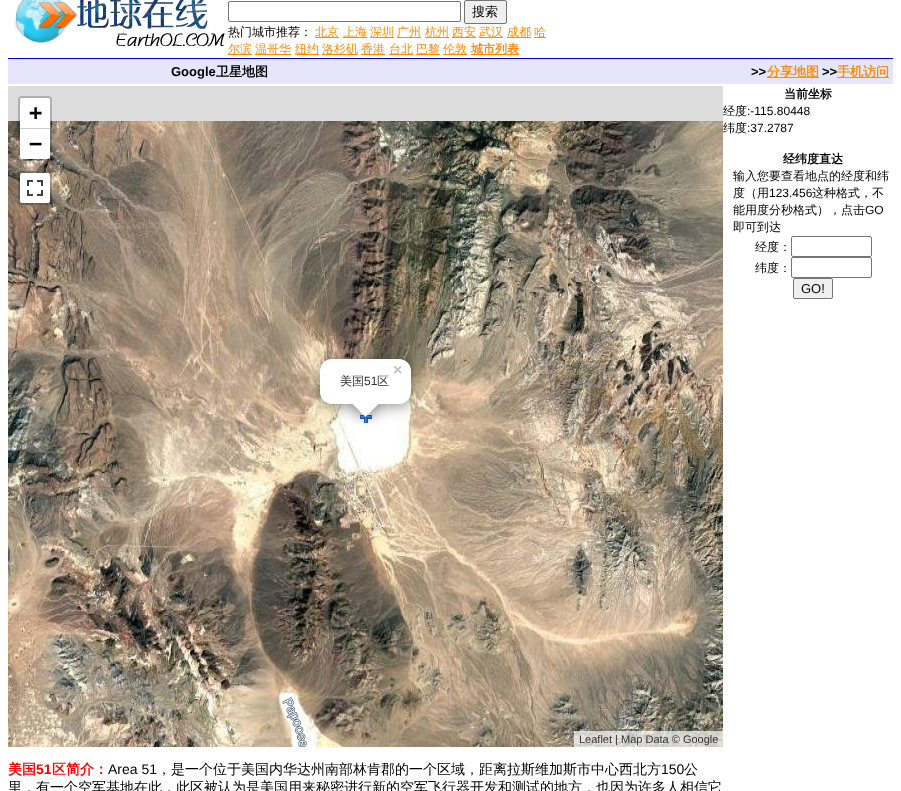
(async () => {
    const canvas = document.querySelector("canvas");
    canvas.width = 901;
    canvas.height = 791;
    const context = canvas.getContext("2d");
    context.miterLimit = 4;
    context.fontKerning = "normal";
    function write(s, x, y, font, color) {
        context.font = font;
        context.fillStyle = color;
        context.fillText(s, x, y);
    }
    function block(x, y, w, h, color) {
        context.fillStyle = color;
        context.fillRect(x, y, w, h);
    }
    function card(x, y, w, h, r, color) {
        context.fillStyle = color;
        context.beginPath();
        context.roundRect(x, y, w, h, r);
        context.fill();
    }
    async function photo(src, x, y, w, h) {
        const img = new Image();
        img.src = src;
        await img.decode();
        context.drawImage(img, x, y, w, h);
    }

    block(0, 0, 901, 791, "rgb(255, 255, 255)");
    await photo("media/1.png", 14, 0, 211, 47);
    context.beginPath();
    context.roundRect(228.5, 1.5, 232, 20, 1.5);
    context.strokeStyle = "rgb(118, 118, 118)";
    context.stroke();
    context.fillStyle = "rgb(239, 239, 239)";
    context.beginPath();
    context.roundRect(464.5, 0.5, 42, 23, 1.5);
    context.fill();
    context.stroke();
    write("搜索", 472, 16, "500 13px WenQuanYi Zen Hei", "rgb(0, 0, 0)");
    write("热门城市推荐：", 228, 36, "500 12px WenQuanYi Zen Hei", "rgb(0, 0, 0)");
    block(315, 37, 24, 1, "rgb(255, 140, 0)");
    write("北京", 315, 36, "500 12px WenQuanYi Zen Hei", "rgb(255, 140, 0)");
    block(343, 37, 24, 1, "rgb(255, 140, 0)");
    write("上海", 343, 36, "500 12px WenQuanYi Zen Hei", "rgb(255, 140, 0)");
    block(370, 37, 24, 1, "rgb(255, 140, 0)");
    write("深圳", 370, 36, "500 12px WenQuanYi Zen Hei", "rgb(255, 140, 0)");
    block(397, 37, 24, 1, "rgb(255, 140, 0)");
    write("广州", 397, 36, "500 12px WenQuanYi Zen Hei", "rgb(255, 140, 0)");
    block(425, 37, 24, 1, "rgb(255, 140, 0)");
    write("杭州", 425, 36, "500 12px WenQuanYi Zen Hei", "rgb(255, 140, 0)");
    block(452, 37, 24, 1, "rgb(255, 140, 0)");
    write("西安", 452, 36, "500 12px WenQuanYi Zen Hei", "rgb(255, 140, 0)");
    block(479, 37, 24, 1, "rgb(255, 140, 0)");
    write("武汉", 479, 36, "500 12px WenQuanYi Zen Hei", "rgb(255, 140, 0)");
    block(507, 37, 24, 1, "rgb(255, 140, 0)");
    write("成都", 507, 36, "500 12px WenQuanYi Zen Hei", "rgb(255, 140, 0)");
    block(534, 37, 12, 1, "rgb(255, 140, 0)");
    write("哈", 534, 36, "500 12px WenQuanYi Zen Hei", "rgb(255, 140, 0)");
    block(228, 54, 24, 1, "rgb(255, 140, 0)");
    write("尔滨", 228, 53, "500 12px WenQuanYi Zen Hei", "rgb(255, 140, 0)");
    block(255, 54, 36, 1, "rgb(255, 140, 0)");
    write("温哥华", 255, 53, "500 12px WenQuanYi Zen Hei", "rgb(255, 140, 0)");
    block(295, 54, 24, 1, "rgb(255, 140, 0)");
    write("纽约", 295, 53, "500 12px WenQuanYi Zen Hei", "rgb(255, 140, 0)");
    block(322, 54, 36, 1, "rgb(255, 140, 0)");
    write("洛杉矶", 322, 53, "500 12px WenQuanYi Zen Hei", "rgb(255, 140, 0)");
    block(361, 54, 24, 1, "rgb(255, 140, 0)");
    write("香港", 361, 53, "500 12px WenQuanYi Zen Hei", "rgb(255, 140, 0)");
    block(389, 54, 24, 1, "rgb(255, 140, 0)");
    write("台北", 389, 53, "500 12px WenQuanYi Zen Hei", "rgb(255, 140, 0)");
    block(416, 54, 24, 1, "rgb(255, 140, 0)");
    write("巴黎", 416, 53, "500 12px WenQuanYi Zen Hei", "rgb(255, 140, 0)");
    block(443, 54, 24, 1, "rgb(255, 140, 0)");
    write("伦敦", 443, 53, "500 12px WenQuanYi Zen Hei", "rgb(255, 140, 0)");
    block(471, 54, 48, 1, "rgb(255, 140, 0)");
    write("城市列表", 471, 53, "bold 12px WenQuanYi Zen Hei", "rgb(255, 140, 0)");
    block(8, 59, 885, 25, "rgb(230, 230, 250)");
    block(8, 58, 885, 1, "rgb(0, 0, 205)");
    write("Google", 171, 76, "bold 13px Liberation Sans", "rgb(0, 0, 0)");
    write("卫星地图", 216, 76, "bold 13px WenQuanYi Zen Hei", "rgb(0, 0, 0)");
    write(">>", 751, 76, "bold 13px Liberation Sans", "rgb(0, 0, 0)");
    block(767, 77, 52, 1, "rgb(255, 140, 0)");
    write("分享地图", 767, 76, "bold 13px WenQuanYi Zen Hei", "rgb(255, 140, 0)");
    write(">>", 822, 76, "bold 13px Liberation Sans", "rgb(0, 0, 0)");
    block(837, 77, 52, 1, "rgb(255, 140, 0)");
    write("手机访问", 837, 76, "bold 13px WenQuanYi Zen Hei", "rgb(255, 140, 0)");
    block(8, 86, 715, 35, "rgb(221, 221, 221)");
    await photo("media/3.png", 8, 121, 50, 256);
    context.beginPath();
    context.roundRect(19, 97, 32, 63, 3);
    context.strokeStyle = "rgba(0, 0, 0, 0.2)";
    context.lineWidth = 2;
    context.stroke();
    context.fillStyle = "rgb(255, 255, 255)";
    context.beginPath();
    context.roundRect(20, 98, 30, 31, [2, 2, 0, 0]);
    context.fill();
    block(20, 128, 30, 1, "rgb(204, 204, 204)");
    write("+", 29, 120, "bold 22px DejaVu Sans Mono", "rgb(0, 0, 0)");
    context.fillStyle = "rgb(255, 255, 255)";
    context.beginPath();
    context.roundRect(20, 129, 30, 30, [0, 0, 2, 2]);
    context.fill();
    write("−", 29, 151, "bold 22px DejaVu Sans Mono", "rgb(0, 0, 0)");
    context.beginPath();
    context.roundRect(19, 172, 32, 32, 3);
    context.stroke();
    card(20, 173, 30, 30, 2, "rgb(255, 255, 255)");
    await photo("media/2.png", 27, 180, 16, 16);
    await photo("media/14.png", 570, 633, 153, 114);
    block(574, 731, 149, 16, "rgba(255, 255, 255, 0.7)");
    write("Leaflet | Map Data © Google", 579, 743, "11px Liberation Sans", "rgb(51, 51, 51)");
    await photo("media/4.png", 58, 121, 256, 256);
    await photo("media/5.png", 314, 121, 256, 256);
    await photo("media/6.png", 570, 121, 153, 256);
    await photo("media/7.png", 8, 377, 50, 256);
    await photo("media/8.png", 58, 377, 256, 256);
    await photo("media/9.png", 314, 377, 256, 256);
    await photo("media/10.png", 570, 377, 153, 256);
    await photo("media/11.png", 8, 633, 50, 114);
    await photo("media/12.png", 58, 633, 256, 114);
    await photo("media/13.png", 314, 633, 256, 114);
    await photo("media/15.png", 360, 414, 12, 9);
    context.fillStyle = "rgba(0, 0, 0, 0.4)";
    context.filter = "blur(7px)";
    context.beginPath();
    context.roundRect(320, 362, 91, 45, 12);
    context.fill();
    context.filter = "none";
    card(320, 359, 91, 45, 12, "rgb(255, 255, 255)");
    write("×", 393, 375, "bold 16px Liberation Sans", "rgb(195, 195, 195)");
    write("美国", 340, 385, "500 12px WenQuanYi Zen Hei", "rgb(51, 51, 51)");
    write("51", 364, 385, "12px Liberation Sans", "rgb(51, 51, 51)");
    write("区", 377, 385, "500 12px WenQuanYi Zen Hei", "rgb(51, 51, 51)");
    context.save();
    context.beginPath();
    context.rect(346, 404, 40, 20);
    context.clip();
    context.fillStyle = "rgba(0, 0, 0, 0.4)";
    context.filter = "blur(7px)";
    context.beginPath();
    context.rect(356, 397, 19, 19);
    context.fill();
    context.filter = "none";
    context.restore();
    context.save();
    context.beginPath();
    context.rect(346, 404, 40, 20);
    context.clip();
    context.fillStyle = "rgb(255, 255, 255)";
    context.beginPath();
    context.moveTo(365.5, 390);
    context.lineTo(379, 403.5);
    context.lineTo(365.5, 417);
    context.lineTo(352, 403.5);
    context.closePath();
    context.fill();
    context.restore();
    write("美国", 8, 774, "bold 14px WenQuanYi Zen Hei", "rgb(255, 0, 0)");
    write("51", 36, 774, "bold 14px Liberation Sans", "rgb(255, 0, 0)");
    write("区简介：", 52, 774, "bold 14px WenQuanYi Zen Hei", "rgb(255, 0, 0)");
    write("Area 51", 108, 774, "14px Liberation Sans", "rgb(0, 0, 0)");
    write("，是一个位于美国内华达州南部林肯郡的一个区域，距离拉斯维加斯市中心西北方", 157, 774, "500 14px WenQuanYi Zen Hei", "rgb(0, 0, 0)");
    write("150", 661, 774, "14px Liberation Sans", "rgb(0, 0, 0)");
    write("公", 684, 774, "500 14px WenQuanYi Zen Hei", "rgb(0, 0, 0)");
    write("里，有一个空军基地在此，此区被认为是美国用来秘密进行新的空军飞行器开发和测试的地方，也因为许多人相信它", 8, 792, "500 14px WenQuanYi Zen Hei", "rgb(0, 0, 0)");
    write("当前坐标", 784, 98, "bold 12px WenQuanYi Zen Hei", "rgb(0, 0, 0)");
    write("经度", 723, 115, "500 12px WenQuanYi Zen Hei", "rgb(0, 0, 0)");
    write(":-115.80448", 747, 115, "12px Liberation Sans", "rgb(0, 0, 0)");
    write("纬度", 723, 132, "500 12px WenQuanYi Zen Hei", "rgb(0, 0, 0)");
    write(":37.2787", 747, 132, "12px Liberation Sans", "rgb(0, 0, 0)");
    write("经纬度直达", 783, 163, "bold 12px WenQuanYi Zen Hei", "rgb(0, 0, 0)");
    write("输入您要查看地点的经度和纬", 733, 180, "500 12px WenQuanYi Zen Hei", "rgb(0, 0, 0)");
    write("度（用", 733, 197, "500 12px WenQuanYi Zen Hei", "rgb(0, 0, 0)");
    write("123.456", 769, 197, "12px Liberation Sans", "rgb(0, 0, 0)");
    write("这种格式，不", 812, 197, "500 12px WenQuanYi Zen Hei", "rgb(0, 0, 0)");
    write("能用度分秒格式），点击", 733, 214, "500 12px WenQuanYi Zen Hei", "rgb(0, 0, 0)");
    write("GO", 865, 214, "12px Liberation Sans", "rgb(0, 0, 0)");
    write("即可到达", 733, 231, "500 12px WenQuanYi Zen Hei", "rgb(0, 0, 0)");
    write("经度：", 755, 251, "500 12px WenQuanYi Zen Hei", "rgb(0, 0, 0)");
    context.beginPath();
    context.roundRect(791.5, 236.5, 80, 20, 1.5);
    context.strokeStyle = "rgb(118, 118, 118)";
    context.lineWidth = 1;
    context.stroke();
    write("纬度：", 755, 272, "500 12px WenQuanYi Zen Hei", "rgb(0, 0, 0)");
    context.beginPath();
    context.roundRect(791.5, 257.5, 80, 20, 1.5);
    context.stroke();
    context.fillStyle = "rgb(239, 239, 239)";
    context.beginPath();
    context.roundRect(793.5, 278.5, 39, 20, 1.5);
    context.fill();
    context.stroke();
    write("GO!", 801, 293, "13px Liberation Sans", "rgb(0, 0, 0)");
})();
